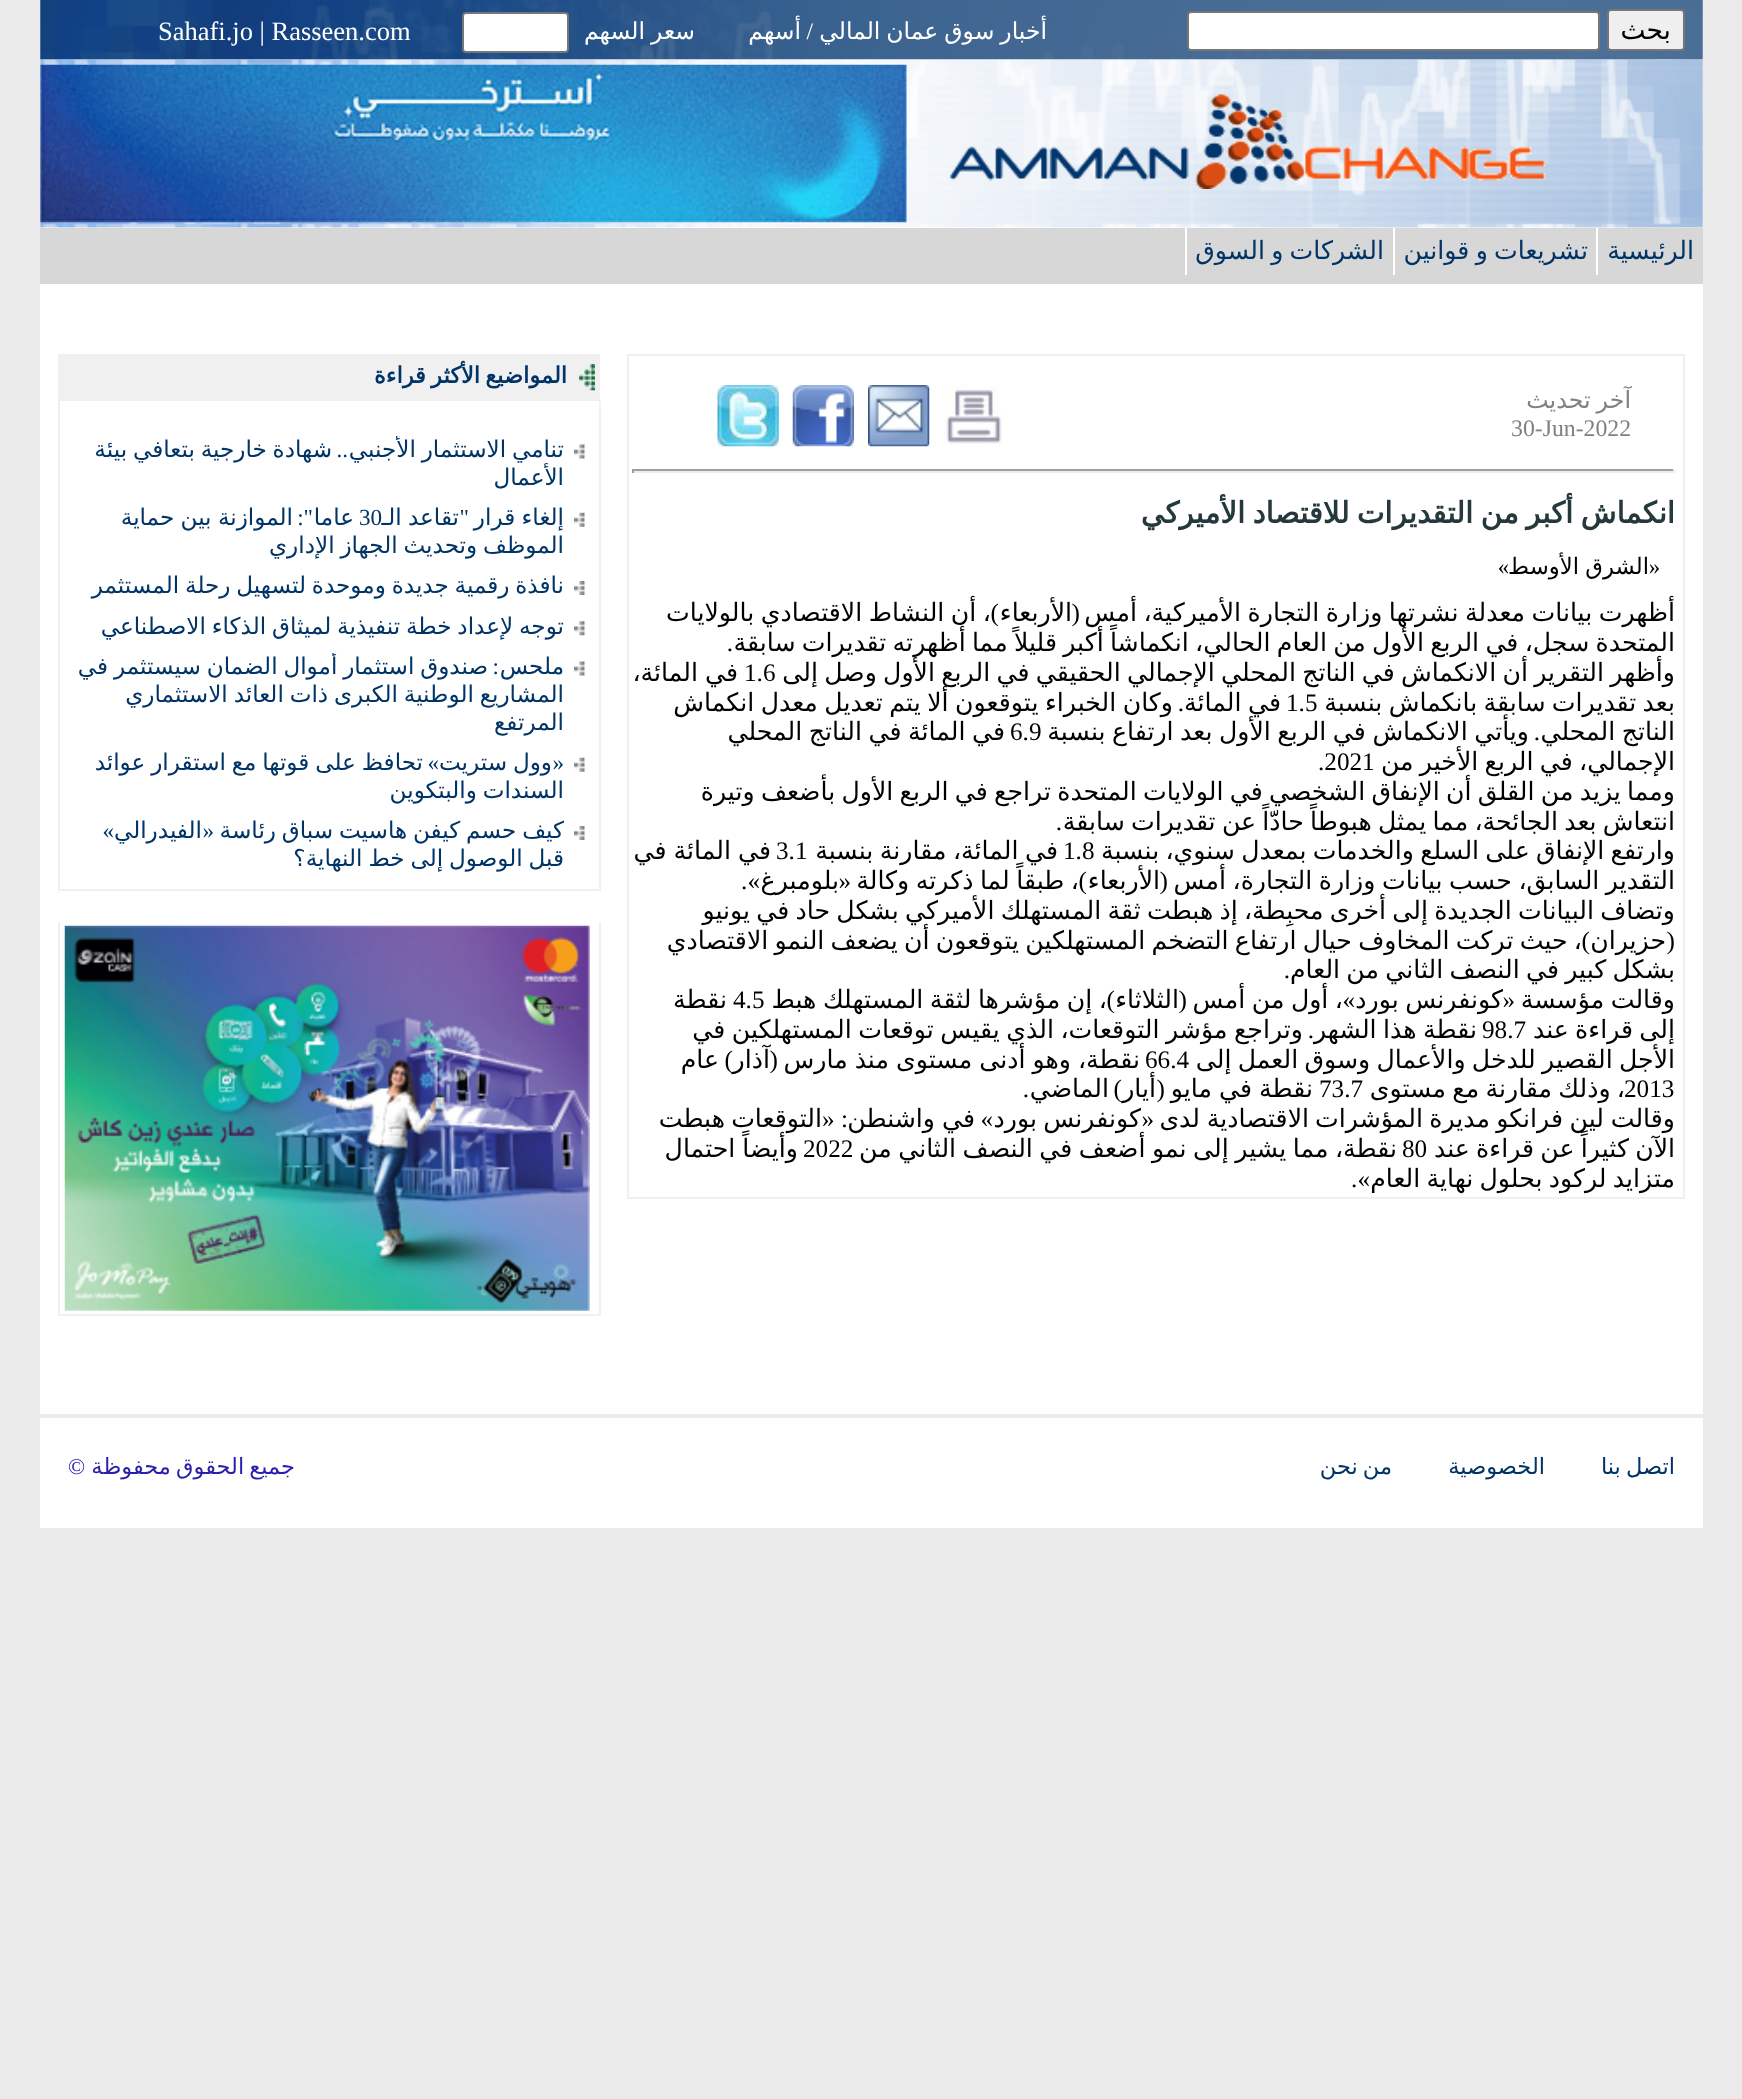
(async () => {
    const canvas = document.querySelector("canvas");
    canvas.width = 1742;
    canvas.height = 2099;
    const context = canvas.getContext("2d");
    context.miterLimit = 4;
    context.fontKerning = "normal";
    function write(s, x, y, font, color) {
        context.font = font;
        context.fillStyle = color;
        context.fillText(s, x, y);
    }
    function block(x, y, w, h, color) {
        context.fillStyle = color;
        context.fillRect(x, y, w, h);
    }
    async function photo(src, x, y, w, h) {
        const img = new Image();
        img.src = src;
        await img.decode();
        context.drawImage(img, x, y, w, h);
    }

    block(0, 0, 1742, 2099, "rgb(234, 234, 234)");
    block(40, 0, 1663, 1528, "rgb(255, 255, 255)");
    await photo("media/1.png", 40, 0, 1663, 60);
    context.fillStyle = "rgb(239, 239, 239)";
    context.beginPath();
    context.roundRect(1608, 10, 76, 40, 3);
    context.fill();
    context.strokeStyle = "rgb(118, 118, 118)";
    context.lineWidth = 2;
    context.stroke();
    context.direction = "rtl";
    write("بحث", 1671, 39, "26.5px DejaVu Sans", "rgb(0, 0, 0)");
    context.fillStyle = "rgb(255, 255, 255)";
    context.beginPath();
    context.roundRect(1188, 12, 411, 38, 3);
    context.fill();
    context.stroke();
    context.wordSpacing = "-1.5px";
    write("أخبار سوق عمان المالي", 1047, 39, "23.5px DejaVu Sans", "rgb(255, 255, 255)");
    context.wordSpacing = "0px";
    write("/", 813, 39, "23.5px Liberation Serif", "rgb(255, 255, 255)");
    write("أسهم", 801, 39, "23.5px DejaVu Sans", "rgb(255, 255, 255)");
    context.wordSpacing = "-1.5px";
    write("سعر السهم", 695, 39, "23.5px DejaVu Sans", "rgb(255, 255, 255)");
    context.beginPath();
    context.roundRect(463, 13, 105, 39, 3);
    context.fill();
    context.stroke();
    context.wordSpacing = "0px";
    context.direction = "ltr";
    write("Sahafi.jo | Rasseen.com", 158, 40, "26.5px Liberation Serif", "rgb(255, 255, 255)");
    await photo("media/2.png", 40, 59, 1663, 169);
    await photo("media/3.png", 950, 94, 596, 95);
    await photo("media/4.png", 40, 64, 867, 159);
    block(40, 228, 1663, 56, "rgb(215, 215, 215)");
    block(1596, 228, 2, 47, "rgb(255, 255, 255)");
    context.direction = "rtl";
    write("الرئيسية", 1694, 259, "25.2px DejaVu Sans", "rgb(0, 51, 102)");
    block(1393, 228, 2, 47, "rgb(255, 255, 255)");
    context.wordSpacing = "-1.75px";
    write("تشريعات و قوانين", 1588, 259, "25.2px DejaVu Sans", "rgb(0, 51, 102)");
    block(1185, 228, 2, 47, "rgb(255, 255, 255)");
    write("الشركات و السوق", 1384, 259, "25.2px DejaVu Sans", "rgb(0, 51, 102)");
    context.strokeStyle = "rgb(240, 240, 240)";
    context.strokeRect(628, 355, 1056, 843);
    context.wordSpacing = "-1.5px";
    write("آخر تحديث", 1631, 408, "23.75px DejaVu Sans", "rgb(128, 128, 128)");
    context.wordSpacing = "0px";
    context.direction = "ltr";
    write("30-Jun-2022", 1511, 436, "23.75px Liberation Serif", "rgb(128, 128, 128)");
    await photo("media/5.png", 944, 385, 58, 61);
    await photo("media/6.png", 868, 385, 62, 62);
    await photo("media/7.png", 792, 385, 62, 62);
    await photo("media/8.png", 717, 385, 62, 62);
    block(632, 469, 1043, 2, "rgb(159, 159, 159)");
    block(1673, 469, 2, 4, "rgb(238, 238, 238)");
    block(632, 471, 1043, 2, "rgb(238, 238, 238)");
    block(632, 469, 2, 4, "rgb(159, 159, 159)");
    context.wordSpacing = "-2px";
    context.direction = "rtl";
    write("انكماش أكبر من التقديرات للاقتصاد الأميركي", 1675, 523, "bold 29.4px DejaVu Sans", "rgb(37, 56, 60)");
    context.wordSpacing = "0px";
    write("«", 1660, 574, "22.75px Liberation Serif", "rgb(0, 0, 0)");
    context.wordSpacing = "-1px";
    write("الشرق الأوسط", 1649, 574, "22.75px DejaVu Sans", "rgb(0, 0, 0)");
    context.wordSpacing = "0px";
    write("»", 1509, 574, "22.75px Liberation Serif", "rgb(0, 0, 0)");
    context.wordSpacing = "-1.5px";
    write("أظهرت بيانات معدلة نشرتها وزارة التجارة الأميركية، أمس", 1675, 621, "25.2px DejaVu Sans", "rgb(0, 0, 0)");
    context.wordSpacing = "0px";
    write("(", 1080, 621, "25.2px Liberation Serif", "rgb(0, 0, 0)");
    write("الأربعاء", 1072, 621, "25.2px DejaVu Sans", "rgb(0, 0, 0)");
    write(")", 999, 621, "25.2px Liberation Serif", "rgb(0, 0, 0)");
    context.wordSpacing = "-1.5px";
    write("، أن النشاط الاقتصادي بالولايات", 991, 621, "25.2px DejaVu Sans", "rgb(0, 0, 0)");
    context.wordSpacing = "-1.75px";
    write("المتحدة سجل، في الربع الأول من العام الحالي، انكماشاً أكبر قليلاً مما أظهرته تقديرات سابقة", 1675, 651, "25.2px DejaVu Sans", "rgb(0, 0, 0)");
    context.wordSpacing = "0px";
    write(".", 733, 651, "25.2px Liberation Serif", "rgb(0, 0, 0)");
    context.wordSpacing = "-1.75px";
    write("وأظهر التقرير أن الانكماش في الناتج المحلي الإجمالي الحقيقي في الربع الأول وصل إلى", 1675, 681, "25.2px DejaVu Sans", "rgb(0, 0, 0)");
    context.wordSpacing = "0px";
    context.direction = "ltr";
    write("1.6", 744, 681, "25.2px Liberation Serif", "rgb(0, 0, 0)");
    context.wordSpacing = "-1px";
    context.direction = "rtl";
    write("في المائة،", 738, 681, "25.2px DejaVu Sans", "rgb(0, 0, 0)");
    context.wordSpacing = "-1.75px";
    write("بعد تقديرات سابقة بانكماش بنسبة", 1675, 711, "25.2px DejaVu Sans", "rgb(0, 0, 0)");
    context.wordSpacing = "0px";
    context.direction = "ltr";
    write("1.5", 1286, 711, "25.2px Liberation Serif", "rgb(0, 0, 0)");
    context.wordSpacing = "-1.5px";
    context.direction = "rtl";
    write("في المائة", 1281, 711, "25.2px DejaVu Sans", "rgb(0, 0, 0)");
    context.wordSpacing = "0px";
    write(".", 1184, 711, "25.2px Liberation Serif", "rgb(0, 0, 0)");
    context.wordSpacing = "-1.5px";
    write("وكان الخبراء يتوقعون ألا يتم تعديل معدل انكماش", 1173, 711, "25.2px DejaVu Sans", "rgb(0, 0, 0)");
    write("الناتج المحلي", 1675, 740, "25.2px DejaVu Sans", "rgb(0, 0, 0)");
    context.wordSpacing = "0px";
    write(".", 1540, 740, "25.2px Liberation Serif", "rgb(0, 0, 0)");
    context.wordSpacing = "-1.5px";
    write("ويأتي الانكماش في الربع الأول بعد ارتفاع بنسبة", 1529, 740, "25.2px DejaVu Sans", "rgb(0, 0, 0)");
    context.wordSpacing = "0px";
    context.direction = "ltr";
    write("6.9", 1010, 740, "25.2px Liberation Serif", "rgb(0, 0, 0)");
    context.wordSpacing = "-1.5px";
    context.direction = "rtl";
    write("في المائة في الناتج المحلي", 1005, 740, "25.2px DejaVu Sans", "rgb(0, 0, 0)");
    context.wordSpacing = "-1.75px";
    write("الإجمالي، في الربع الأخير من", 1675, 770, "25.2px DejaVu Sans", "rgb(0, 0, 0)");
    context.wordSpacing = "0px";
    context.direction = "ltr";
    write(".2021", 1318, 770, "25.2px Liberation Serif", "rgb(0, 0, 0)");
    context.wordSpacing = "-1.75px";
    context.direction = "rtl";
    write("ومما يزيد من القلق أن الإنفاق الشخصي في الولايات المتحدة تراجع في الربع الأول بأضعف وتيرة", 1675, 800, "25.2px DejaVu Sans", "rgb(0, 0, 0)");
    write("انتعاش بعد الجائحة، مما يمثل هبوطاً حادّاً عن تقديرات سابقة", 1675, 830, "25.2px DejaVu Sans", "rgb(0, 0, 0)");
    context.wordSpacing = "0px";
    write(".", 1062, 830, "25.2px Liberation Serif", "rgb(0, 0, 0)");
    context.wordSpacing = "-1.75px";
    write("وارتفع الإنفاق على السلع والخدمات بمعدل سنوي، بنسبة", 1675, 859, "25.2px DejaVu Sans", "rgb(0, 0, 0)");
    context.wordSpacing = "0px";
    context.direction = "ltr";
    write("1.8", 1063, 859, "25.2px Liberation Serif", "rgb(0, 0, 0)");
    context.wordSpacing = "-1.5px";
    context.direction = "rtl";
    write("في المائة، مقارنة بنسبة", 1058, 859, "25.2px DejaVu Sans", "rgb(0, 0, 0)");
    context.wordSpacing = "0px";
    context.direction = "ltr";
    write("3.1", 776, 859, "25.2px Liberation Serif", "rgb(0, 0, 0)");
    context.wordSpacing = "-1px";
    context.direction = "rtl";
    write("في المائة في", 771, 859, "25.2px DejaVu Sans", "rgb(0, 0, 0)");
    context.wordSpacing = "-1.5px";
    write("التقدير السابق، حسب بيانات وزارة التجارة، أمس", 1675, 889, "25.2px DejaVu Sans", "rgb(0, 0, 0)");
    context.wordSpacing = "0px";
    write("(", 1168, 889, "25.2px Liberation Serif", "rgb(0, 0, 0)");
    write("الأربعاء", 1160, 889, "25.2px DejaVu Sans", "rgb(0, 0, 0)");
    write(")", 1087, 889, "25.2px Liberation Serif", "rgb(0, 0, 0)");
    context.wordSpacing = "-1.5px";
    write("، طبقاً لما ذكرته وكالة", 1079, 889, "25.2px DejaVu Sans", "rgb(0, 0, 0)");
    context.wordSpacing = "0px";
    write("«", 851, 889, "25.2px Liberation Serif", "rgb(0, 0, 0)");
    write("بلومبرغ", 839, 889, "25.2px DejaVu Sans", "rgb(0, 0, 0)");
    write("».", 760, 889, "25.2px Liberation Serif", "rgb(0, 0, 0)");
    context.wordSpacing = "-1.75px";
    write("وتضاف البيانات الجديدة إلى أخرى محبِطة، إذ هبطت ثقة المستهلك الأميركي بشكل حاد في يونيو", 1675, 919, "25.2px DejaVu Sans", "rgb(0, 0, 0)");
    context.wordSpacing = "0px";
    write("(", 1675, 949, "25.2px Liberation Serif", "rgb(0, 0, 0)");
    write("حزيران", 1666, 949, "25.2px DejaVu Sans", "rgb(0, 0, 0)");
    write(")", 1590, 949, "25.2px Liberation Serif", "rgb(0, 0, 0)");
    context.wordSpacing = "-1.75px";
    write("، حيث تركت المخاوف حيال ارتفاع التضخم المستهلكين يتوقعون أن يضعف النمو الاقتصادي", 1582, 949, "25.2px DejaVu Sans", "rgb(0, 0, 0)");
    write("بشكل كبير في النصف الثاني من العام", 1675, 978, "25.2px DejaVu Sans", "rgb(0, 0, 0)");
    context.wordSpacing = "0px";
    write(".", 1290, 978, "25.2px Liberation Serif", "rgb(0, 0, 0)");
    context.wordSpacing = "-1.5px";
    write("وقالت مؤسسة", 1675, 1008, "25.2px DejaVu Sans", "rgb(0, 0, 0)");
    context.wordSpacing = "0px";
    write("«", 1515, 1008, "25.2px Liberation Serif", "rgb(0, 0, 0)");
    context.wordSpacing = "-1.5px";
    write("كونفرنس بورد", 1503, 1008, "25.2px DejaVu Sans", "rgb(0, 0, 0)");
    context.wordSpacing = "0px";
    write("»", 1355, 1008, "25.2px Liberation Serif", "rgb(0, 0, 0)");
    context.wordSpacing = "-1.5px";
    write("، أول من أمس", 1343, 1008, "25.2px DejaVu Sans", "rgb(0, 0, 0)");
    context.wordSpacing = "0px";
    write("(", 1187, 1008, "25.2px Liberation Serif", "rgb(0, 0, 0)");
    write("الثلاثاء", 1179, 1008, "25.2px DejaVu Sans", "rgb(0, 0, 0)");
    write(")", 1115, 1008, "25.2px Liberation Serif", "rgb(0, 0, 0)");
    context.wordSpacing = "-1.5px";
    write("، إن مؤشرها لثقة المستهلك هبط", 1107, 1008, "25.2px DejaVu Sans", "rgb(0, 0, 0)");
    context.wordSpacing = "0px";
    context.direction = "ltr";
    write("4.5", 733, 1008, "25.2px Liberation Serif", "rgb(0, 0, 0)");
    context.direction = "rtl";
    write("نقطة", 727, 1008, "25.2px DejaVu Sans", "rgb(0, 0, 0)");
    context.wordSpacing = "-1.75px";
    write("إلى قراءة عند", 1675, 1038, "25.2px DejaVu Sans", "rgb(0, 0, 0)");
    context.wordSpacing = "0px";
    context.direction = "ltr";
    write("98.7", 1482, 1038, "25.2px Liberation Serif", "rgb(0, 0, 0)");
    context.wordSpacing = "-1.5px";
    context.direction = "rtl";
    write("نقطة هذا الشهر", 1477, 1038, "25.2px DejaVu Sans", "rgb(0, 0, 0)");
    context.wordSpacing = "0px";
    write(".", 1314, 1038, "25.2px Liberation Serif", "rgb(0, 0, 0)");
    context.wordSpacing = "-1.5px";
    write("وتراجع مؤشر التوقعات، الذي يقيس توقعات المستهلكين في", 1303, 1038, "25.2px DejaVu Sans", "rgb(0, 0, 0)");
    context.wordSpacing = "-1.75px";
    write("الأجل القصير للدخل والأعمال وسوق العمل إلى", 1675, 1068, "25.2px DejaVu Sans", "rgb(0, 0, 0)");
    context.wordSpacing = "0px";
    context.direction = "ltr";
    write("66.4", 1145, 1068, "25.2px Liberation Serif", "rgb(0, 0, 0)");
    context.wordSpacing = "-1px";
    context.direction = "rtl";
    write("نقطة، وهو أدنى مستوى منذ مارس", 1140, 1068, "25.2px DejaVu Sans", "rgb(0, 0, 0)");
    context.wordSpacing = "0px";
    write(")", 733, 1068, "25.2px Liberation Serif", "rgb(0, 0, 0)");
    write("آذار", 770, 1068, "25.2px DejaVu Sans", "rgb(0, 0, 0)");
    write("(", 778, 1068, "25.2px Liberation Serif", "rgb(0, 0, 0)");
    write("عام", 719, 1068, "25.2px DejaVu Sans", "rgb(0, 0, 0)");
    context.direction = "ltr";
    write("2013", 1624, 1097, "25.2px Liberation Serif", "rgb(0, 0, 0)");
    context.wordSpacing = "-1.75px";
    context.direction = "rtl";
    write("، وذلك مقارنة مع مستوى", 1625, 1097, "25.2px DejaVu Sans", "rgb(0, 0, 0)");
    context.wordSpacing = "0px";
    context.direction = "ltr";
    write("73.7", 1319, 1097, "25.2px Liberation Serif", "rgb(0, 0, 0)");
    context.wordSpacing = "-1px";
    context.direction = "rtl";
    write("نقطة في مايو", 1313, 1097, "25.2px DejaVu Sans", "rgb(0, 0, 0)");
    context.wordSpacing = "0px";
    write("(", 1165, 1097, "25.2px Liberation Serif", "rgb(0, 0, 0)");
    write(")", 1122, 1097, "25.2px Liberation Serif", "rgb(0, 0, 0)");
    write("أيار", 1156, 1097, "25.2px DejaVu Sans", "rgb(0, 0, 0)");
    write("الماضي", 1109, 1097, "25.2px DejaVu Sans", "rgb(0, 0, 0)");
    write(".", 1029, 1097, "25.2px Liberation Serif", "rgb(0, 0, 0)");
    write("وقالت", 1675, 1127, "25.2px DejaVu Sans", "rgb(0, 0, 0)");
    write("لين", 1604, 1127, "25.2px DejaVu Sans", "rgb(0, 0, 0)");
    write("فرانكو", 1563, 1127, "25.2px DejaVu Sans", "rgb(0, 0, 0)");
    write("مديرة", 1490, 1127, "25.2px DejaVu Sans", "rgb(0, 0, 0)");
    write("المؤشرات", 1423, 1127, "25.2px DejaVu Sans", "rgb(0, 0, 0)");
    write("الاقتصادية", 1309, 1127, "25.2px DejaVu Sans", "rgb(0, 0, 0)");
    write("لدى", 1200, 1127, "25.2px DejaVu Sans", "rgb(0, 0, 0)");
    write("«", 1154, 1127, "25.2px Liberation Serif", "rgb(0, 0, 0)");
    write("كونفرنس", 1141, 1127, "25.2px DejaVu Sans", "rgb(0, 0, 0)");
    write("بورد", 1037, 1127, "25.2px DejaVu Sans", "rgb(0, 0, 0)");
    write("»", 993, 1127, "25.2px Liberation Serif", "rgb(0, 0, 0)");
    write("في", 975, 1127, "25.2px DejaVu Sans", "rgb(0, 0, 0)");
    write("واشنطن", 935, 1127, "25.2px DejaVu Sans", "rgb(0, 0, 0)");
    write(": «", 848, 1127, "25.2px Liberation Serif", "rgb(0, 0, 0)");
    write("التوقعات", 822, 1127, "25.2px DejaVu Sans", "rgb(0, 0, 0)");
    write("هبطت", 725, 1127, "25.2px DejaVu Sans", "rgb(0, 0, 0)");
    context.wordSpacing = "-1.75px";
    write("الآن كثيراً عن قراءة عند", 1675, 1157, "25.2px DejaVu Sans", "rgb(0, 0, 0)");
    context.wordSpacing = "0px";
    context.direction = "ltr";
    write("80", 1402, 1157, "25.2px Liberation Serif", "rgb(0, 0, 0)");
    context.wordSpacing = "-1.5px";
    context.direction = "rtl";
    write("نقطة، مما يشير إلى نمو أضعف في النصف الثاني من", 1397, 1157, "25.2px DejaVu Sans", "rgb(0, 0, 0)");
    context.wordSpacing = "0px";
    context.direction = "ltr";
    write("2022", 803, 1157, "25.2px Liberation Serif", "rgb(0, 0, 0)");
    context.wordSpacing = "-1px";
    context.direction = "rtl";
    write("وأيضاً احتمال", 798, 1157, "25.2px DejaVu Sans", "rgb(0, 0, 0)");
    context.wordSpacing = "-1.75px";
    write("متزايد لركود بحلول نهاية العام", 1675, 1187, "25.2px DejaVu Sans", "rgb(0, 0, 0)");
    context.wordSpacing = "0px";
    write("».", 1370, 1187, "25.2px Liberation Serif", "rgb(0, 0, 0)");
    block(58, 354, 542, 47, "rgb(240, 240, 240)");
    await photo("media/9.png", 579, 364, 16, 27);
    context.wordSpacing = "-2px";
    write("المواضيع الأكثر قراءة", 567, 383, "bold 22.5px DejaVu Sans", "rgb(0, 51, 102)");
    block(599, 401, 2, 490, "rgb(240, 240, 240)");
    block(58, 889, 542, 2, "rgb(240, 240, 240)");
    block(58, 401, 2, 490, "rgb(240, 240, 240)");
    await photo("media/10.png", 574, 444, 11, 15);
    context.save();
    context.beginPath();
    context.rect(63, 436, 527, 68);
    context.clip();
    context.wordSpacing = "-1.5px";
    write("تنامي الاستثمار الأجنبي", 564, 457, "23.1px DejaVu Sans", "rgb(0, 51, 102)");
    context.restore();
    context.wordSpacing = "0px";
    write("..", 348, 457, "23.1px Liberation Serif", "rgb(0, 51, 102)");
    context.wordSpacing = "-1.5px";
    write("شهادة خارجية بتعافي بيئة", 332, 457, "23.1px DejaVu Sans", "rgb(0, 51, 102)");
    context.wordSpacing = "0px";
    write("الأعمال", 564, 485, "23.1px DejaVu Sans", "rgb(0, 51, 102)");
    await photo("media/11.png", 574, 512, 11, 15);
    context.wordSpacing = "-1px";
    write("إلغاء قرار", 564, 525, "23.1px DejaVu Sans", "rgb(0, 51, 102)");
    context.wordSpacing = "0px";
    write("\"", 469, 525, "23.1px Liberation Serif", "rgb(0, 51, 102)");
    context.wordSpacing = "-1px";
    write("تقاعد الـ", 459, 525, "23.1px DejaVu Sans", "rgb(0, 51, 102)");
    context.wordSpacing = "0px";
    context.direction = "ltr";
    write("30", 359, 525, "23.1px Liberation Serif", "rgb(0, 51, 102)");
    context.direction = "rtl";
    write("عاما", 354, 525, "23.1px DejaVu Sans", "rgb(0, 51, 102)");
    write("\":", 313, 525, "23.1px Liberation Serif", "rgb(0, 51, 102)");
    context.wordSpacing = "-1px";
    write("الموازنة بين حماية", 293, 525, "23.1px DejaVu Sans", "rgb(0, 51, 102)");
    context.wordSpacing = "-1.5px";
    write("الموظف وتحديث الجهاز الإداري", 564, 553, "23.1px DejaVu Sans", "rgb(0, 51, 102)");
    await photo("media/12.png", 574, 581, 11, 14);
    write("نافذة رقمية جديدة وموحدة لتسهيل رحلة المستثمر", 564, 593, "23.1px DejaVu Sans", "rgb(0, 51, 102)");
    await photo("media/13.png", 574, 621, 11, 15);
    write("توجه لإعداد خطة تنفيذية لميثاق الذكاء الاصطناعي", 564, 634, "23.1px DejaVu Sans", "rgb(0, 51, 102)");
    await photo("media/10.png", 574, 661, 11, 15);
    context.wordSpacing = "0px";
    write("ملحس", 564, 674, "23.1px DejaVu Sans", "rgb(0, 51, 102)");
    write(":", 499, 674, "23.1px Liberation Serif", "rgb(0, 51, 102)");
    context.save();
    context.beginPath();
    context.rect(63, 653, 527, 96);
    context.clip();
    context.wordSpacing = "-1.5px";
    write("صندوق استثمار أموال الضمان سيستثمر في", 488, 674, "23.1px DejaVu Sans", "rgb(0, 51, 102)");
    context.restore();
    context.wordSpacing = "-1.5px";
    write("المشاريع الوطنية الكبرى ذات العائد الاستثماري", 564, 702, "23.1px DejaVu Sans", "rgb(0, 51, 102)");
    context.wordSpacing = "0px";
    write("المرتفع", 564, 730, "23.1px DejaVu Sans", "rgb(0, 51, 102)");
    await photo("media/11.png", 574, 757, 11, 15);
    write("«", 564, 770, "23.1px Liberation Serif", "rgb(0, 51, 102)");
    context.wordSpacing = "-1.5px";
    write("وول ستريت", 552, 770, "23.1px DejaVu Sans", "rgb(0, 51, 102)");
    context.wordSpacing = "0px";
    write("»", 439, 770, "23.1px Liberation Serif", "rgb(0, 51, 102)");
    context.wordSpacing = "-1.5px";
    write("تحافظ على قوتها مع استقرار عوائد", 423, 770, "23.1px DejaVu Sans", "rgb(0, 51, 102)");
    write("السندات والبتكوين", 564, 798, "23.1px DejaVu Sans", "rgb(0, 51, 102)");
    await photo("media/12.png", 574, 826, 11, 14);
    write("كيف حسم كيفن هاسيت سباق رئاسة", 564, 838, "23.1px DejaVu Sans", "rgb(0, 51, 102)");
    context.wordSpacing = "0px";
    write("«", 214, 838, "23.1px Liberation Serif", "rgb(0, 51, 102)");
    write("الفيدرالي", 202, 838, "23.1px DejaVu Sans", "rgb(0, 51, 102)");
    write("»", 114, 838, "23.1px Liberation Serif", "rgb(0, 51, 102)");
    context.wordSpacing = "-1.5px";
    write("قبل الوصول إلى خط النهاية؟", 564, 866, "23.1px DejaVu Sans", "rgb(0, 51, 102)");
    block(599, 922, 2, 394, "rgb(240, 240, 240)");
    block(58, 1314, 542, 2, "rgb(240, 240, 240)");
    block(58, 922, 2, 394, "rgb(240, 240, 240)");
    await photo("media/14.png", 64, 925, 526, 386);
    block(40, 1414, 1663, 4, "rgb(236, 236, 236)");
    context.wordSpacing = "-2px";
    write("اتصل بنا", 1675, 1474, "22.5px DejaVu Sans", "rgb(0, 51, 102)");
    context.wordSpacing = "0px";
    write("الخصوصية", 1545, 1474, "22.5px DejaVu Sans", "rgb(0, 51, 102)");
    context.wordSpacing = "-2px";
    write("من نحن", 1392, 1474, "22.5px DejaVu Sans", "rgb(0, 51, 102)");
    write("جميع الحقوق محفوظة", 295, 1474, "22.5px DejaVu Sans", "rgb(42, 31, 170)");
    context.wordSpacing = "0px";
    context.direction = "ltr";
    write("©", 68, 1474, "22.5px Liberation Serif", "rgb(42, 31, 170)");
})();
